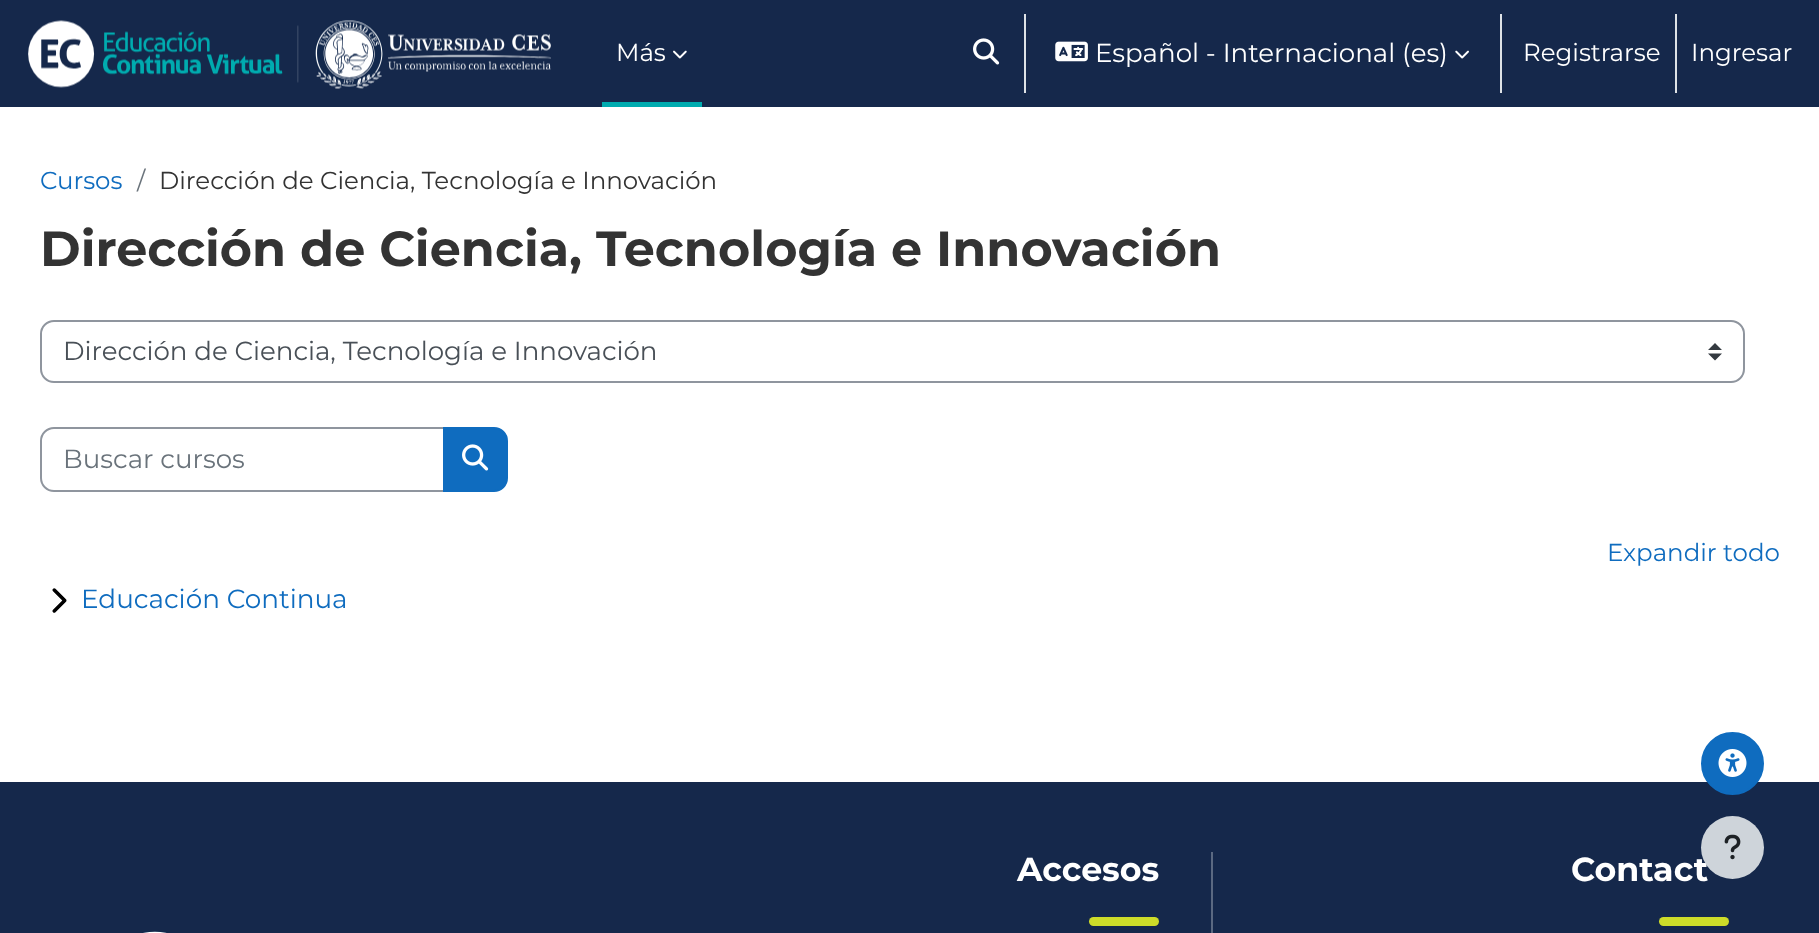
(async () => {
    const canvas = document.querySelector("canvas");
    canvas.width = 1819;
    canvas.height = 933;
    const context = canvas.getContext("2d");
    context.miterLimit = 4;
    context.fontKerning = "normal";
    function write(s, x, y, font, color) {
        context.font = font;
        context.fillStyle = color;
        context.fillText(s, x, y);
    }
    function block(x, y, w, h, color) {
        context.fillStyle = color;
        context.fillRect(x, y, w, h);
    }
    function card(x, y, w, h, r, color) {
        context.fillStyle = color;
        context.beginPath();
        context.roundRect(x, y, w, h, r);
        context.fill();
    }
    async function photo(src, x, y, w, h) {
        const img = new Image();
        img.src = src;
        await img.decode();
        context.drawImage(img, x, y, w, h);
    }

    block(0, 0, 1819, 933, "rgb(255, 255, 255)");
    block(0, 0, 1819, 107, "rgb(21, 40, 75)");
    await photo("media/1.png", 28, 20, 523, 69);
    block(602, 102, 100, 5, "rgb(0, 171, 175)");
    write("Más", 616, 61, "24.5px Montserrat", "rgb(255, 255, 255)");
    await photo("media/2.png", 673, 50, 14, 9);
    await photo("media/3.png", 973, 38, 27, 27);
    block(1024, 14, 2, 79, "rgb(222, 226, 230)");
    await photo("media/4.png", 1055, 41, 33, 21);
    write("Español - Internacional (es)", 1095, 62, "26.1px Montserrat", "rgb(255, 255, 255)");
    await photo("media/5.png", 1455, 50, 14, 9);
    block(1500, 14, 2, 79, "rgb(222, 226, 230)");
    write("Registrarse", 1523, 61, "24.5px Montserrat", "rgb(255, 255, 255)");
    block(1675, 14, 2, 79, "rgb(222, 226, 230)");
    write("Ingresar", 1691, 61, "24.5px Montserrat", "rgb(255, 255, 255)");
    write("Cursos", 40, 189, "24.5px Montserrat", "rgb(15, 108, 191)");
    write("/", 137, 189, "24.5px Montserrat", "rgb(106, 115, 123)");
    write("Dirección de Ciencia, Tecnología e Innovación", 159, 189, "24.5px Montserrat", "rgb(51, 51, 51)");
    write("Dirección de Ciencia, Tecnología e Innovación", 40, 266, "bold 49.25px Montserrat", "rgb(51, 51, 51)");
    context.fillStyle = "rgb(52, 58, 64)";
    context.beginPath();
    context.moveTo(1715, 343);
    context.lineTo(1708, 350);
    context.lineTo(1722, 350);
    context.closePath();
    context.moveTo(1715, 360.5);
    context.lineTo(1708, 353.5);
    context.lineTo(1722, 353.5);
    context.closePath();
    context.fill();
    context.beginPath();
    context.roundRect(41, 321, 1703, 61, 13);
    context.strokeStyle = "rgb(143, 149, 158)";
    context.lineWidth = 2;
    context.stroke();
    write("Dirección de Ciencia, Tecnología e Innovación", 63, 360, "26.1px Montserrat", "rgb(73, 80, 87)");
    context.beginPath();
    context.roundRect(41, 428, 403, 63, [13, 0, 0, 13]);
    context.stroke();
    write("Buscar cursos", 63, 468, "26.1px Montserrat", "rgb(106, 115, 123)");
    context.fillStyle = "rgb(15, 108, 191)";
    context.beginPath();
    context.roundRect(444, 428, 63, 63, [0, 13, 13, 0]);
    context.fill();
    context.strokeStyle = "rgb(15, 108, 191)";
    context.stroke();
    await photo("media/6.png", 462, 444, 27, 27);
    write("Expandir todo", 1607, 561, "24.5px Montserrat", "rgb(15, 108, 191)");
    await photo("media/7.png", 52, 588, 15, 25);
    write("Educación Continua", 81, 608, "26.25px Montserrat", "rgb(15, 108, 191)");
    block(0, 782, 1819, 151, "rgb(21, 40, 75)");
    context.fillStyle = "rgb(15, 108, 191)";
    context.beginPath();
    context.arc(1732.5, 763.5, 30.5, 0, Math.PI * 2);
    context.fill();
    context.stroke();
    await photo("media/8.png", 1718, 749, 29, 28);
    write("Accesos", 1017, 881, "bold 33.25px Montserrat", "rgb(255, 255, 255)");
    card(1089, 917, 70, 9, 4.5, "rgb(205, 220, 41)");
    block(1211, 852, 2, 81, "rgb(91, 105, 129)");
    write("Contact", 1571, 881, "bold 33.25px Montserrat", "rgb(255, 255, 255)");
    card(1659, 917, 70, 9, 4.5, "rgb(205, 220, 41)");
    await photo("media/9.png", 143, 931, 24, 2);
    context.fillStyle = "rgb(206, 212, 218)";
    context.beginPath();
    context.arc(1732.5, 847.5, 31.5, 0, Math.PI * 2);
    context.fill();
    await photo("media/10.png", 1724, 834, 17, 26);
})();
